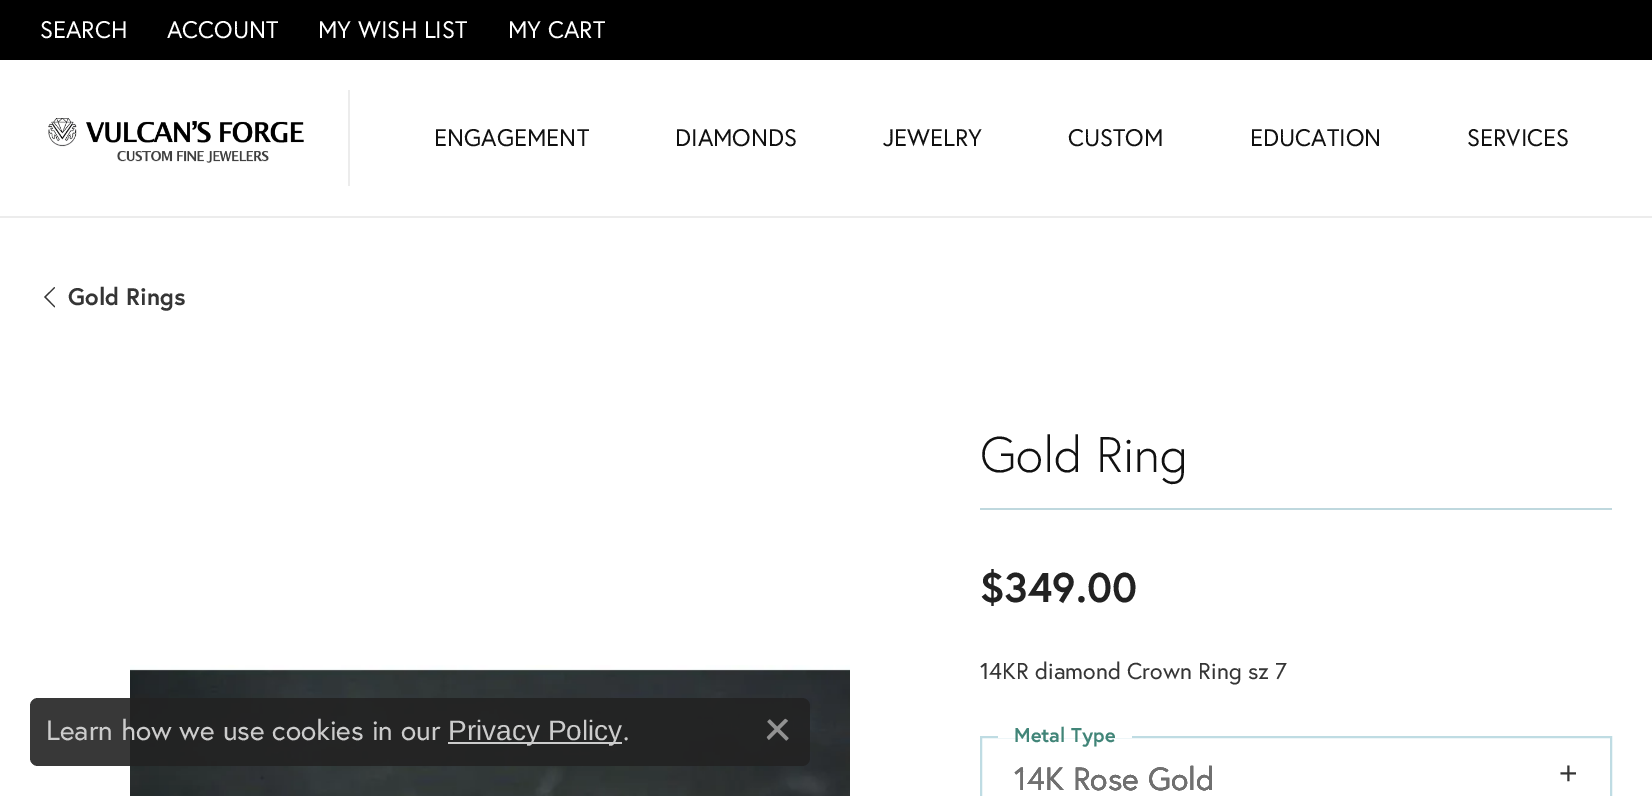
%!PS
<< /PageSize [1652 796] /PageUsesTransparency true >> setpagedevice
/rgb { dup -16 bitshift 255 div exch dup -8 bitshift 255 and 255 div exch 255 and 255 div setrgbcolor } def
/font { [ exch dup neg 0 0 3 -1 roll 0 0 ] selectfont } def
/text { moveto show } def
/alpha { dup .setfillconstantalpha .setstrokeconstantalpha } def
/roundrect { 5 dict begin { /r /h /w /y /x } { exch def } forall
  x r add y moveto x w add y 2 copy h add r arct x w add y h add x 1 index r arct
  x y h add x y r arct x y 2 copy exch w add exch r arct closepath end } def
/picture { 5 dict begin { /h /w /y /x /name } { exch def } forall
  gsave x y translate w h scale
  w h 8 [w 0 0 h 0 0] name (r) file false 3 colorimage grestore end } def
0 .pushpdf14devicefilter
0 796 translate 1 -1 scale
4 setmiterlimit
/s1 { /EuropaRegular-Regular 24 font 16#FFFFFF rgb } def
/s2 { /EuropaRegular-Regular 24 font 16#111111 rgb } def
/s3 { /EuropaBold-Bold 24 font 16#353535 rgb } def
/s4 { /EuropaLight-Light 50 font 16#111111 rgb } def
/s5 { /EuropaBold-Bold 41.5 font 16#222222 rgb } def
/s6 { /EuropaRegular-Regular 23 font 16#353535 rgb } def
/s7 { /EuropaBold-Bold 20 font 16#418578 rgb } def
/s8 { /EuropaRegular-Regular 32 font 16#353535 rgb } def
/s9 { /LiberationSans-Regular 32 font 16#353535 rgb } def
/s10 { /EuropaRegular-Regular 32 font 16#707070 rgb } def
/s11 { /EuropaRegular-Regular 28 font 16#CCCCCC rgb } def
/s12 { /LiberationSans-Regular 28 font 16#CCCCCC rgb } def
16#FFFFFF rgb
0 0 1652 796 rectfill
16#000000 rgb
0 0 1652 60 rectfill
s1
(SEARCH) 40 38 text
(ACCOUNT) 167 38 text
(MY WISH LIST) 318 38 text
(MY CART) 508 38 text
16#ECECEC rgb
0 216 1652 2 rectfill
348 90 2 96 rectfill
(pic1.raw) 48 118 256 45 picture
s2
(ENGAGEMENT) 434 146 text
(DIAMONDS) 675 146 text
(JEWELRY) 883 146 text
(CUSTOM) 1068 146 text
(EDUCATION) 1250 146 text
(SERVICES) 1467 146 text
16#353535 rgb
54.5 307.5 moveto 44 297 lineto 54.5 287 lineto 55 288 lineto 46 297 lineto 55 306.5 lineto closepath fill
s3
(Gold Rings) 68 305 text
(pic2.raw) 130 665 720 131 picture
s4
(Gold Ring) 980 472 text
16#BFD8DE rgb
980 508 632 2 rectfill
s5
($349.00) 980 602 text
s6
(14KR diamond Crown Ring sz 7) 980 679 text
16#BFDCE3 rgb
2 setlinewidth
981 737 630 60 rectstroke
16#FFFFFF rgb
998 736 134 2 rectfill
s7
(Metal Type) 1014 742 text
s8
(14K Rose Gold) 1014 790 text
s9
(+) 1559 784 text
s10
(14K Rose Gold) 1014 790 text
0.9 alpha
16#222222 rgb
30 698 780 68 8 roundrect fill
1 alpha
s11
(Learn how we use cookies in our) 46 740 text
448 742 174 2 rectfill
s12
(Privacy Policy) 448 740 text
s11
(.) 623 740 text
(pic3.raw) 766 718 23 23 picture
.poppdf14devicefilter showpage
